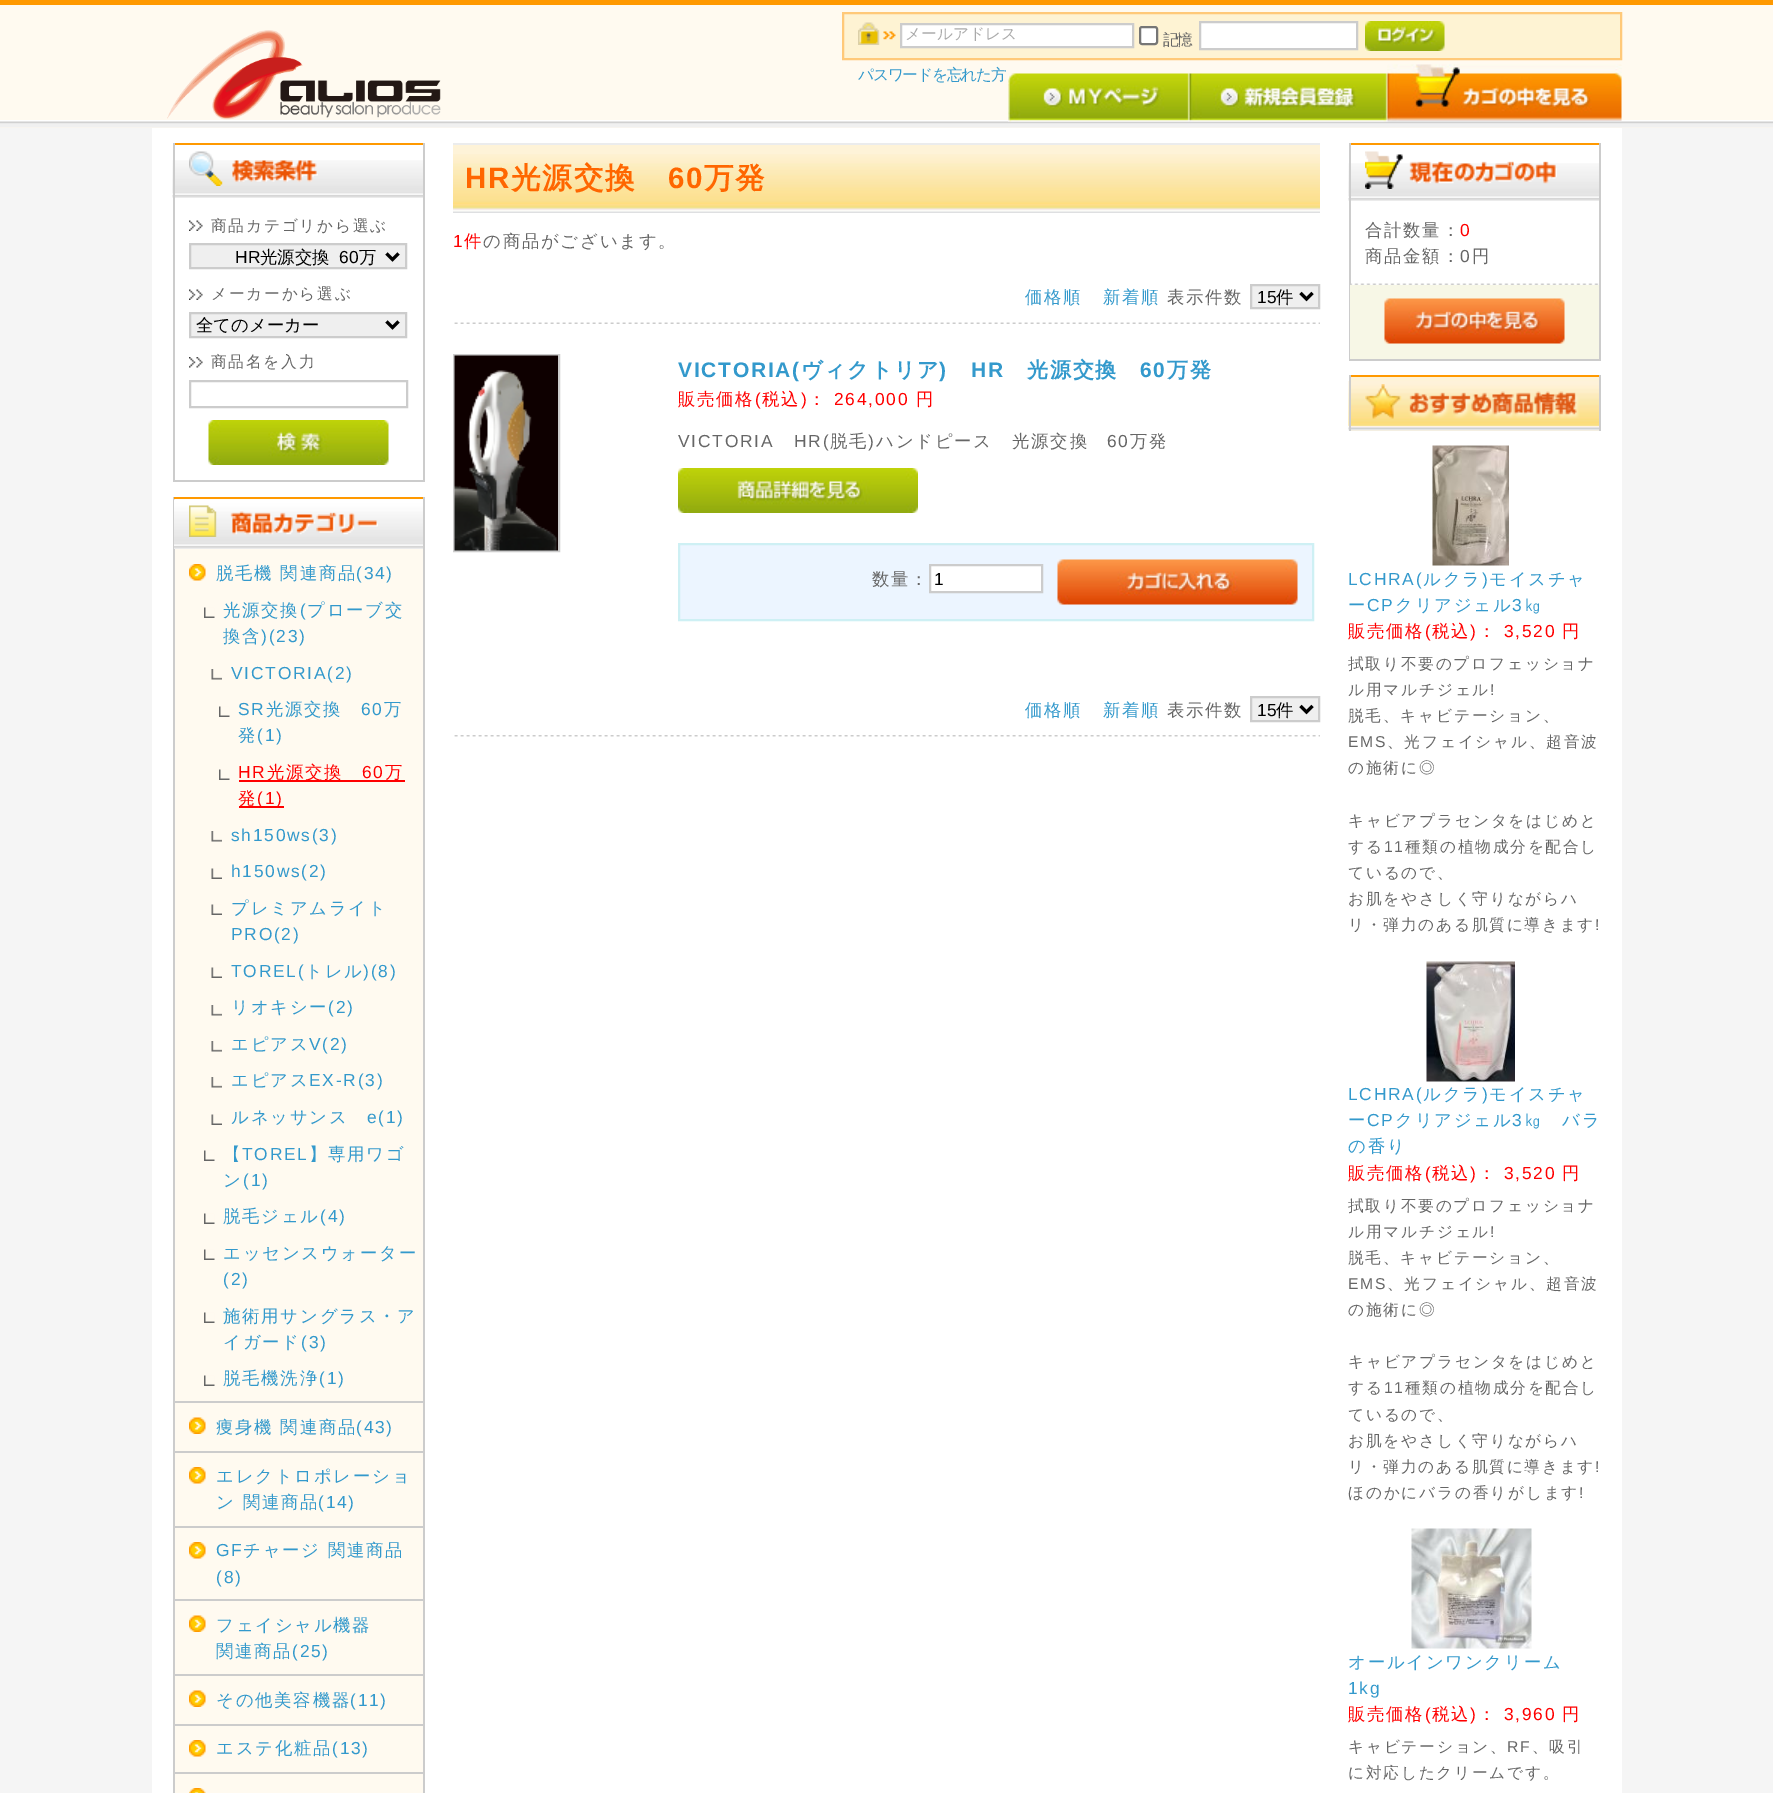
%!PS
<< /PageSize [1773 1793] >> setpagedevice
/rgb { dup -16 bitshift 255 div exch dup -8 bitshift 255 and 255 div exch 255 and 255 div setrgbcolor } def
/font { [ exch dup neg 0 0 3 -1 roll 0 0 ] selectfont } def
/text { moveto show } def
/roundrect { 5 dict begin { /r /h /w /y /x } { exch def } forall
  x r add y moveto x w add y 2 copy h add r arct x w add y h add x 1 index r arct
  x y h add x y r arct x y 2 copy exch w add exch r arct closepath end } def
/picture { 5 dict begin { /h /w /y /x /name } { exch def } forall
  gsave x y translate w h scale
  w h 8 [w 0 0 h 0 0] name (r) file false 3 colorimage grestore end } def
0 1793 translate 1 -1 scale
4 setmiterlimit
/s1 { /WenQuanYiZenHei-Medium 15.7 font 16#AAAAAA rgb } def
/s2 { /LiberationSans-Regular 17.4 font 16#000000 rgb } def
/s3 { /WenQuanYiZenHei-Medium 17.4 font 16#000000 rgb } def
16#F5F5F5 rgb
0 0 1773 1793 rectfill
16#FFFAF0 rgb
0 5 1773 123 rectfill
(pic1.raw) 0 120 1773 8 picture
16#FF9900 rgb
0 0 1773 5 rectfill
(pic2.raw) 167 30 274 90 picture
16#FEF3D3 rgb
843 13 moveto 1621 13 lineto 1621 59 lineto 843 59 lineto closepath gsave fill grestore
16#FFC979 rgb
2 setlinewidth
stroke
(pic3.raw) 858 22 38 23 picture
16#FFFFFF rgb
901 24 moveto 1133 24 lineto 1133 47 lineto 901 47 lineto closepath gsave fill grestore
16#CCCCCC rgb
stroke
s1
(メールアドレス) 905 39 text
16#FFFFFF rgb
1140 27 17 17 2 roundrect gsave fill grestore
16#767676 rgb
stroke
16#666666 rgb
1163 45 moveto -1.25 0 (記憶) ashow
16#FFFFFF rgb
1200 22 moveto 1357 22 lineto 1357 49 lineto 1200 49 lineto closepath gsave fill grestore
16#CCCCCC rgb
stroke
(pic4.raw) 1365 21 80 30 picture
16#3399CC rgb
858 80 moveto -1.25 0 (パスワードを忘れた方) ashow
(pic5.raw) 1008 73 182 49 picture
(pic6.raw) 1189 73 199 49 picture
(pic7.raw) 1387 64 235 57 picture
16#FFFFFF rgb
152 128 1470 1665 rectfill
(pic8.raw) 172 160 251 38 picture
16#FF9900 rgb
173 143 252 2 rectfill
16#CCCCCC rgb
423 143 2 339 rectfill
173 143 2 55 rectfill
(pic9.raw) 189 151 129 35 picture
173 480 252 2 rectfill
173 198 2 284 rectfill
(pic10.raw) 189 220 14 11 picture
16#666666 rgb
211 231 moveto 1.75 0 (商品カテゴリから選ぶ) ashow
16#EFEFEF rgb
190 244 moveto 406 244 lineto 406 268 lineto 190 268 lineto closepath gsave fill grestore
16#CCCCCC rgb
stroke
16#000000 rgb
3 setlinewidth
386.5 253.5 moveto 392.5 259.5 lineto 398.5 253.5 lineto stroke
s2
(HR) 235 263 text
s3
(光源交換) 260 263 text
s2
(60) 339 263 text
s3
(万) 359 263 text
(pic10.raw) 189 289 14 11 picture
/WenQuanYiZenHei-Medium 15.7 font
16#666666 rgb
211 299 moveto 1.75 0 (メーカーから選ぶ) ashow
16#EFEFEF rgb
190 313 moveto 406 313 lineto 406 337 lineto 190 337 lineto closepath gsave fill grestore
16#CCCCCC rgb
2 setlinewidth
stroke
16#000000 rgb
3 setlinewidth
386.5 321.5 moveto 392.5 327.5 lineto 398.5 321.5 lineto stroke
s3
(全てのメーカー) 196 331 text
(pic11.raw) 189 357 14 11 picture
/WenQuanYiZenHei-Medium 15.7 font
16#666666 rgb
211 367 moveto 1.75 0 (商品名を入力) ashow
16#CCCCCC rgb
2 setlinewidth
190 381 217 26 rectstroke
(pic12.raw) 208 420 181 45 picture
16#FFFAF0 rgb
175 499 248 1294 rectfill
16#CCCCCC rgb
423 497 2 1296 rectfill
173 497 2 1296 rectfill
(pic13.raw) 174 499 249 50 picture
16#FF9900 rgb
174 497 249 2 rectfill
(pic14.raw) 189 505 189 32 picture
16#CCCCCC rgb
174 1401 249 2 rectfill
(pic15.raw) 189 564 17 17 picture
/WenQuanYiZenHei-Medium 17.4 font
16#3399CC rgb
216 579 moveto 1.75 0 (脱毛機 関連商品) ashow
/LiberationSans-Regular 17.4 font
356 579 moveto 1.75 0 (\(34\)) ashow
(pic16.raw) 204 607 11 11 picture
/WenQuanYiZenHei-Medium 17.4 font
223 616 moveto 1.75 0 (光源交換) ashow
/LiberationSans-Regular 17.4 font
300 616 moveto 1.75 0 (\() ashow
/WenQuanYiZenHei-Medium 17.4 font
307 616 moveto 1.75 0 (プローブ交) ashow
223 642 moveto 1.75 0 (換含) ashow
/LiberationSans-Regular 17.4 font
261 642 moveto 1.75 0 (\)\(23\)) ashow
(pic17.raw) 211 669 11 11 picture
231 679 moveto 1.75 0 (VICTORIA\(2\)) ashow
(pic16.raw) 219 706 11 11 picture
238 715 moveto 1.75 0 (SR) ashow
/WenQuanYiZenHei-Medium 17.4 font
266 715 moveto 1.75 0 (光源交換) ashow
/LiberationSans-Regular 17.4 font
361 715 moveto 1.75 0 (60) ashow
/WenQuanYiZenHei-Medium 17.4 font
384 715 moveto 1.75 0 (万) ashow
238 741 moveto 1.75 0 (発) ashow
/LiberationSans-Regular 17.4 font
257 741 moveto 1.75 0 (\(1\)) ashow
(pic16.raw) 219 769 11 11 picture
16#FF0000 rgb
238 778 moveto 1.75 0 (HR) ashow
239 780 166 2 rectfill
/WenQuanYiZenHei-Medium 17.4 font
267 778 moveto 1.75 0 (光源交換) ashow
/LiberationSans-Regular 17.4 font
362 778 moveto 1.75 0 (60) ashow
/WenQuanYiZenHei-Medium 17.4 font
385 778 moveto 1.75 0 (万) ashow
239 806 45 2 rectfill
238 804 moveto 1.75 0 (発) ashow
/LiberationSans-Regular 17.4 font
257 804 moveto 1.75 0 (\(1\)) ashow
(pic17.raw) 211 831 11 11 picture
16#3399CC rgb
231 841 moveto 1.75 0 (sh150ws\(3\)) ashow
(pic18.raw) 211 868 11 11 picture
231 877 moveto 1.75 0 (h150ws\(2\)) ashow
(pic18.raw) 211 904 11 11 picture
/WenQuanYiZenHei-Medium 17.4 font
231 914 moveto 1.75 0 (プレミアムライト) ashow
/LiberationSans-Regular 17.4 font
231 940 moveto 1.75 0 (PRO\(2\)) ashow
(pic18.raw) 211 967 11 11 picture
231 977 moveto 1.75 0 (TOREL\() ashow
/WenQuanYiZenHei-Medium 17.4 font
305 977 moveto 1.75 0 (トレル) ashow
/LiberationSans-Regular 17.4 font
363 977 moveto 1.75 0 (\)\(8\)) ashow
(pic17.raw) 211 1005 11 11 picture
/WenQuanYiZenHei-Medium 17.4 font
231 1013 moveto 1.75 0 (リオキシー) ashow
/LiberationSans-Regular 17.4 font
328 1013 moveto 1.75 0 (\(2\)) ashow
(pic17.raw) 211 1041 11 11 picture
/WenQuanYiZenHei-Medium 17.4 font
231 1050 moveto 1.75 0 (エピアス) ashow
/LiberationSans-Regular 17.4 font
309 1050 moveto 1.75 0 (V\(2\)) ashow
(pic17.raw) 211 1077 11 11 picture
/WenQuanYiZenHei-Medium 17.4 font
231 1086 moveto 1.75 0 (エピアス) ashow
/LiberationSans-Regular 17.4 font
309 1086 moveto 1.75 0 (EX-R\(3\)) ashow
(pic18.raw) 211 1114 11 11 picture
/WenQuanYiZenHei-Medium 17.4 font
231 1123 moveto 1.75 0 (ルネッサンス) ashow
/LiberationSans-Regular 17.4 font
367 1123 moveto 1.75 0 (e\(1\)) ashow
(pic16.raw) 204 1150 11 11 picture
/WenQuanYiZenHei-Medium 17.4 font
223 1160 moveto 1.75 0 (【) ashow
/LiberationSans-Regular 17.4 font
242 1160 moveto 1.75 0 (TOREL) ashow
/WenQuanYiZenHei-Medium 17.4 font
309 1160 moveto 1.75 0 (】専用ワゴ) ashow
223 1186 moveto 1.75 0 (ン) ashow
/LiberationSans-Regular 17.4 font
243 1186 moveto 1.75 0 (\(1\)) ashow
(pic16.raw) 204 1213 11 11 picture
/WenQuanYiZenHei-Medium 17.4 font
223 1222 moveto 1.75 0 (脱毛ジェル) ashow
/LiberationSans-Regular 17.4 font
320 1222 moveto 1.75 0 (\(4\)) ashow
(pic16.raw) 204 1249 11 11 picture
/WenQuanYiZenHei-Medium 17.4 font
223 1259 moveto 1.75 0 (エッセンスウォーター) ashow
/LiberationSans-Regular 17.4 font
223 1285 moveto 1.75 0 (\(2\)) ashow
(pic16.raw) 204 1312 11 11 picture
/WenQuanYiZenHei-Medium 17.4 font
223 1322 moveto 1.75 0 (施術用サングラス・ア) ashow
223 1348 moveto 1.75 0 (イガード) ashow
/LiberationSans-Regular 17.4 font
301 1348 moveto 1.75 0 (\(3\)) ashow
(pic16.raw) 204 1375 11 11 picture
/WenQuanYiZenHei-Medium 17.4 font
223 1384 moveto 1.75 0 (脱毛機洗浄) ashow
/LiberationSans-Regular 17.4 font
319 1384 moveto 1.75 0 (\(1\)) ashow
16#CCCCCC rgb
174 1451 249 2 rectfill
(pic19.raw) 189 1417 17 17 picture
/WenQuanYiZenHei-Medium 17.4 font
16#3399CC rgb
216 1433 moveto 1.75 0 (痩身機 関連商品) ashow
/LiberationSans-Regular 17.4 font
356 1433 moveto 1.75 0 (\(43\)) ashow
16#CCCCCC rgb
174 1526 249 2 rectfill
(pic15.raw) 189 1467 17 17 picture
/WenQuanYiZenHei-Medium 17.4 font
16#3399CC rgb
216 1482 moveto 1.75 0 (エレクトロポレーショ) ashow
216 1508 moveto 1.75 0 (ン 関連商品) ashow
/LiberationSans-Regular 17.4 font
318 1508 moveto 1.75 0 (\(14\)) ashow
16#CCCCCC rgb
174 1599 249 2 rectfill
(pic15.raw) 189 1542 17 17 picture
16#3399CC rgb
216 1556 moveto 1.75 0 (GF) ashow
/WenQuanYiZenHei-Medium 17.4 font
243 1556 moveto 1.75 0 (チャージ 関連商品) ashow
/LiberationSans-Regular 17.4 font
216 1583 moveto 1.75 0 (\(8\)) ashow
16#CCCCCC rgb
174 1674 249 2 rectfill
(pic19.raw) 189 1615 17 17 picture
/WenQuanYiZenHei-Medium 17.4 font
16#3399CC rgb
216 1631 moveto 1.75 0 (フェイシャル機器) ashow
216 1657 moveto 1.75 0 (関連商品) ashow
/LiberationSans-Regular 17.4 font
292 1657 moveto 1.75 0 (\(25\)) ashow
16#CCCCCC rgb
174 1724 249 2 rectfill
(pic19.raw) 189 1690 17 17 picture
/WenQuanYiZenHei-Medium 17.4 font
16#3399CC rgb
216 1706 moveto 1.75 0 (その他美容機器) ashow
/LiberationSans-Regular 17.4 font
350 1706 moveto 1.75 0 (\(11\)) ashow
16#CCCCCC rgb
174 1772 249 2 rectfill
(pic15.raw) 189 1740 17 17 picture
/WenQuanYiZenHei-Medium 17.4 font
16#3399CC rgb
216 1754 moveto 1.75 0 (エステ化粧品) ashow
/LiberationSans-Regular 17.4 font
332 1754 moveto 1.75 0 (\(13\)) ashow
(pic20.raw) 189 1788 17 5 picture
16#FEF3D8 rgb
453 145 867 9 rectfill
(pic21.raw) 453 154 867 59 picture
16#EBECED rgb
453 143 867 2 rectfill
/LiberationSans-Bold 29.5 font
16#FF6600 rgb
465 188 moveto 1.75 0 (HR) ashow
/WenQuanYiZenHei-Bold 29.5 font
511 188 moveto 1.75 0 (光源交換) ashow
/LiberationSans-Bold 29.5 font
668 188 moveto 1.75 0 (60) ashow
/WenQuanYiZenHei-Bold 29.5 font
704 188 moveto 1.75 0 (万発) ashow
/LiberationSans-Regular 17.4 font
16#FF0000 rgb
453 247 moveto 1.75 0 (1) ashow
/WenQuanYiZenHei-Medium 17.4 font
464 247 moveto 1.75 0 (件) ashow
16#666666 rgb
483 247 moveto 1.75 0 (の商品がございます。) ashow
(pic22.raw) 454 322 866 2 picture
16#3399CC rgb
1025 303 moveto 1.75 0 (価格順) ashow
1103 303 moveto 1.75 0 (新着順) ashow
16#666666 rgb
1167 303 moveto 1.75 0 (表示件数) ashow
16#EFEFEF rgb
1251 285 moveto 1319 285 lineto 1319 308 lineto 1251 308 lineto closepath gsave fill grestore
16#CCCCCC rgb
stroke
16#000000 rgb
3 setlinewidth
1300.5 293 moveto 1306.5 299 lineto 1312.5 293 lineto stroke
s2
(15) 1257 303 text
s3
(件) 1276 303 text
16#CCCCCC rgb
2 setlinewidth
454 355 105 196 rectstroke
(pic23.raw) 454 355 104 196 picture
/LiberationSans-Bold 21 font
16#3399CC rgb
678 377 moveto 1.75 0 (VICTORIA\() ashow
/WenQuanYiZenHei-Bold 21 font
801 377 moveto 1.75 0 (ヴィクトリア) ashow
/LiberationSans-Bold 21 font
939 377 moveto 1.75 0 (\)) ashow
971 377 moveto 1.75 0 (HR) ashow
/WenQuanYiZenHei-Bold 21 font
1027 377 moveto 1.75 0 (光源交換) ashow
/LiberationSans-Bold 21 font
1140 377 moveto 1.75 0 (60) ashow
/WenQuanYiZenHei-Bold 21 font
1167 377 moveto 1.75 0 (万発) ashow
/WenQuanYiZenHei-Medium 17.4 font
16#FF0000 rgb
678 405 moveto 1.75 0 (販売価格) ashow
/LiberationSans-Regular 17.4 font
755 405 moveto 1.75 0 (\() ashow
/WenQuanYiZenHei-Medium 17.4 font
762 405 moveto 1.75 0 (税込) ashow
/LiberationSans-Regular 17.4 font
801 405 moveto 1.75 0 (\)) ashow
/WenQuanYiZenHei-Medium 17.4 font
808 405 moveto 1.75 0 (：) ashow
/LiberationSans-Regular 17.4 font
834 405 moveto 1.75 0 (264,000) ashow
/WenQuanYiZenHei-Medium 17.4 font
916 405 moveto 1.75 0 (円) ashow
/LiberationSans-Regular 17.4 font
16#666666 rgb
678 447 moveto 1.75 0 (VICTORIA) ashow
794 447 moveto 1.75 0 (HR\() ashow
/WenQuanYiZenHei-Medium 17.4 font
830 447 moveto 1.75 0 (脱毛) ashow
/LiberationSans-Regular 17.4 font
868 447 moveto 1.75 0 (\)) ashow
/WenQuanYiZenHei-Medium 17.4 font
876 447 moveto 1.75 0 (ハンドピース　光源交換) ashow
/LiberationSans-Regular 17.4 font
1107 447 moveto 1.75 0 (60) ashow
/WenQuanYiZenHei-Medium 17.4 font
1130 447 moveto 1.75 0 (万発) ashow
(pic24.raw) 678 468 240 45 picture
16#ECF5FF rgb
679 544 moveto 1313 544 lineto 1313 620 lineto 679 620 lineto closepath gsave fill grestore
16#CEF0F4 rgb
stroke
16#666666 rgb
872 585 moveto 1.75 0 (数量：) ashow
16#FFFFFF rgb
930 565 moveto 1042 565 lineto 1042 592 lineto 930 592 lineto closepath gsave fill grestore
16#CCCCCC rgb
stroke
s2
(1) 934 585 text
(pic25.raw) 1057 559 241 46 picture
(pic26.raw) 454 735 866 2 picture
/WenQuanYiZenHei-Medium 17.4 font
16#3399CC rgb
1025 716 moveto 1.75 0 (価格順) ashow
1103 716 moveto 1.75 0 (新着順) ashow
16#666666 rgb
1167 716 moveto 1.75 0 (表示件数) ashow
16#EFEFEF rgb
1251 697 moveto 1319 697 lineto 1319 721 lineto 1251 721 lineto closepath gsave fill grestore
16#CCCCCC rgb
stroke
16#000000 rgb
3 setlinewidth
1300.5 706 moveto 1306.5 712 lineto 1312.5 706 lineto stroke
s2
(15) 1257 716 text
s3
(件) 1276 716 text
(pic8.raw) 1348 163 251 38 picture
16#FF9900 rgb
1349 143 252 2 rectfill
16#CCCCCC rgb
1599 143 2 217 rectfill
1349 143 2 58 rectfill
(pic27.raw) 1365 151 192 38 picture
1349 359 252 2 rectfill
1349 201 2 159 rectfill
16#666666 rgb
1365 236 moveto 1.75 0 (合計数量：) ashow
/LiberationSans-Regular 17.4 font
16#FF0000 rgb
1460 236 moveto 1.75 0 (0) ashow
/WenQuanYiZenHei-Medium 17.4 font
16#666666 rgb
1365 262 moveto 1.75 0 (商品金額：) ashow
/LiberationSans-Regular 17.4 font
1460 262 moveto 1.75 0 (0) ashow
/WenQuanYiZenHei-Medium 17.4 font
1472 262 moveto 1.75 0 (円) ashow
16#F7F7E6 rgb
1350 285 249 74 rectfill
(pic28.raw) 1350 283 249 2 picture
(pic29.raw) 1384 298 181 46 picture
16#FEF3D8 rgb
1351 377 248 54 rectfill
(pic30.raw) 1348 381 251 50 picture
16#FF9900 rgb
1349 375 252 2 rectfill
16#CCCCCC rgb
1599 375 2 56 rectfill
1349 375 2 56 rectfill
(pic31.raw) 1365 384 215 35 picture
(pic32.raw) 1432 445 77 121 picture
/LiberationSans-Regular 17.4 font
16#3399CC rgb
1348 585 moveto 1.75 0 (LCHRA\() ashow
/WenQuanYiZenHei-Medium 17.4 font
1423 585 moveto 1.75 0 (ルクラ) ashow
/LiberationSans-Regular 17.4 font
1482 585 moveto 1.75 0 (\)) ashow
/WenQuanYiZenHei-Medium 17.4 font
1489 585 moveto 1.75 0 (モイスチャ) ashow
1348 611 moveto 1.75 0 (ー) ashow
/LiberationSans-Regular 17.4 font
1367 611 moveto 1.75 0 (CP) ashow
/WenQuanYiZenHei-Medium 17.4 font
1395 611 moveto 1.75 0 (クリアジェル) ashow
/LiberationSans-Regular 17.4 font
1512 611 moveto 1.75 0 (3) ashow
/WenQuanYiZenHei-Medium 17.4 font
1524 611 moveto 1.75 0 (㎏) ashow
16#FF0000 rgb
1348 637 moveto 1.75 0 (販売価格) ashow
/LiberationSans-Regular 17.4 font
1425 637 moveto 1.75 0 (\() ashow
/WenQuanYiZenHei-Medium 17.4 font
1432 637 moveto 1.75 0 (税込) ashow
/LiberationSans-Regular 17.4 font
1470 637 moveto 1.75 0 (\)) ashow
/WenQuanYiZenHei-Medium 17.4 font
1478 637 moveto 1.75 0 (：) ashow
/LiberationSans-Regular 17.4 font
1504 637 moveto 1.75 0 (3,520) ashow
/WenQuanYiZenHei-Medium 17.4 font
1562 637 moveto 1.75 0 (円) ashow
/WenQuanYiZenHei-Medium 15.7 font
16#666666 rgb
1348 669 moveto 1.75 0 (拭取り不要のプロフェッショナ) ashow
1348 695 moveto 1.75 0 (ル用マルチジェル) ashow
/LiberationSans-Regular 15.7 font
1490 695 moveto 1.75 0 (!) ashow
/WenQuanYiZenHei-Medium 15.7 font
1348 721 moveto 1.75 0 (脱毛、キャビテーション、) ashow
/LiberationSans-Regular 15.7 font
1348 747 moveto 1.75 0 (EMS) ashow
/WenQuanYiZenHei-Medium 15.7 font
1387 747 moveto 1.75 0 (、光フェイシャル、超音波) ashow
1348 773 moveto 1.75 0 (の施術に◎) ashow
1348 826 moveto 1.75 0 (キャビアプラセンタをはじめと) ashow
1348 852 moveto 1.75 0 (する) ashow
/LiberationSans-Regular 15.7 font
1384 852 moveto 1.75 0 (11) ashow
/WenQuanYiZenHei-Medium 15.7 font
1405 852 moveto 1.75 0 (種類の植物成分を配合し) ashow
1348 878 moveto 1.75 0 (ているので、) ashow
1348 904 moveto 1.75 0 (お肌をやさしく守りながらハ) ashow
1348 930 moveto 1.75 0 (リ・弾力のある肌質に導きます) ashow
/LiberationSans-Regular 15.7 font
1595 930 moveto 1.75 0 (!) ashow
(pic33.raw) 1426 961 89 121 picture
/LiberationSans-Regular 17.4 font
16#3399CC rgb
1348 1100 moveto 1.75 0 (LCHRA\() ashow
/WenQuanYiZenHei-Medium 17.4 font
1423 1100 moveto 1.75 0 (ルクラ) ashow
/LiberationSans-Regular 17.4 font
1482 1100 moveto 1.75 0 (\)) ashow
/WenQuanYiZenHei-Medium 17.4 font
1489 1100 moveto 1.75 0 (モイスチャ) ashow
1348 1126 moveto 1.75 0 (ー) ashow
/LiberationSans-Regular 17.4 font
1367 1126 moveto 1.75 0 (CP) ashow
/WenQuanYiZenHei-Medium 17.4 font
1395 1126 moveto 1.75 0 (クリアジェル) ashow
/LiberationSans-Regular 17.4 font
1512 1126 moveto 1.75 0 (3) ashow
/WenQuanYiZenHei-Medium 17.4 font
1524 1126 moveto 1.75 0 (㎏　バラ) ashow
1348 1152 moveto 1.75 0 (の香り) ashow
16#FF0000 rgb
1348 1179 moveto 1.75 0 (販売価格) ashow
/LiberationSans-Regular 17.4 font
1425 1179 moveto 1.75 0 (\() ashow
/WenQuanYiZenHei-Medium 17.4 font
1432 1179 moveto 1.75 0 (税込) ashow
/LiberationSans-Regular 17.4 font
1470 1179 moveto 1.75 0 (\)) ashow
/WenQuanYiZenHei-Medium 17.4 font
1478 1179 moveto 1.75 0 (：) ashow
/LiberationSans-Regular 17.4 font
1504 1179 moveto 1.75 0 (3,520) ashow
/WenQuanYiZenHei-Medium 17.4 font
1562 1179 moveto 1.75 0 (円) ashow
/WenQuanYiZenHei-Medium 15.7 font
16#666666 rgb
1348 1211 moveto 1.75 0 (拭取り不要のプロフェッショナ) ashow
1348 1237 moveto 1.75 0 (ル用マルチジェル) ashow
/LiberationSans-Regular 15.7 font
1490 1237 moveto 1.75 0 (!) ashow
/WenQuanYiZenHei-Medium 15.7 font
1348 1263 moveto 1.75 0 (脱毛、キャビテーション、) ashow
/LiberationSans-Regular 15.7 font
1348 1289 moveto 1.75 0 (EMS) ashow
/WenQuanYiZenHei-Medium 15.7 font
1387 1289 moveto 1.75 0 (、光フェイシャル、超音波) ashow
1348 1315 moveto 1.75 0 (の施術に◎) ashow
1348 1367 moveto 1.75 0 (キャビアプラセンタをはじめと) ashow
1348 1393 moveto 1.75 0 (する) ashow
/LiberationSans-Regular 15.7 font
1384 1393 moveto 1.75 0 (11) ashow
/WenQuanYiZenHei-Medium 15.7 font
1405 1393 moveto 1.75 0 (種類の植物成分を配合し) ashow
1348 1420 moveto 1.75 0 (ているので、) ashow
1348 1446 moveto 1.75 0 (お肌をやさしく守りながらハ) ashow
1348 1472 moveto 1.75 0 (リ・弾力のある肌質に導きます) ashow
/LiberationSans-Regular 15.7 font
1595 1472 moveto 1.75 0 (!) ashow
/WenQuanYiZenHei-Medium 15.7 font
1348 1498 moveto 1.75 0 (ほのかにバラの香りがします) ashow
/LiberationSans-Regular 15.7 font
1579 1498 moveto 1.75 0 (!) ashow
(pic34.raw) 1411 1528 121 121 picture
/WenQuanYiZenHei-Medium 17.4 font
16#3399CC rgb
1348 1668 moveto 1.75 0 (オールインワンクリーム) ashow
/LiberationSans-Regular 17.4 font
1348 1694 moveto 1.75 0 (1kg) ashow
/WenQuanYiZenHei-Medium 17.4 font
16#FF0000 rgb
1348 1720 moveto 1.75 0 (販売価格) ashow
/LiberationSans-Regular 17.4 font
1425 1720 moveto 1.75 0 (\() ashow
/WenQuanYiZenHei-Medium 17.4 font
1432 1720 moveto 1.75 0 (税込) ashow
/LiberationSans-Regular 17.4 font
1470 1720 moveto 1.75 0 (\)) ashow
/WenQuanYiZenHei-Medium 17.4 font
1478 1720 moveto 1.75 0 (：) ashow
/LiberationSans-Regular 17.4 font
1504 1720 moveto 1.75 0 (3,960) ashow
/WenQuanYiZenHei-Medium 17.4 font
1562 1720 moveto 1.75 0 (円) ashow
/WenQuanYiZenHei-Medium 15.7 font
16#666666 rgb
1348 1752 moveto 1.75 0 (キャビテーション、) ashow
/LiberationSans-Regular 15.7 font
1507 1752 moveto 1.75 0 (RF) ashow
/WenQuanYiZenHei-Medium 15.7 font
1532 1752 moveto 1.75 0 (、吸引) ashow
1348 1778 moveto 1.75 0 (に対応したクリームです。) ashow
showpage
